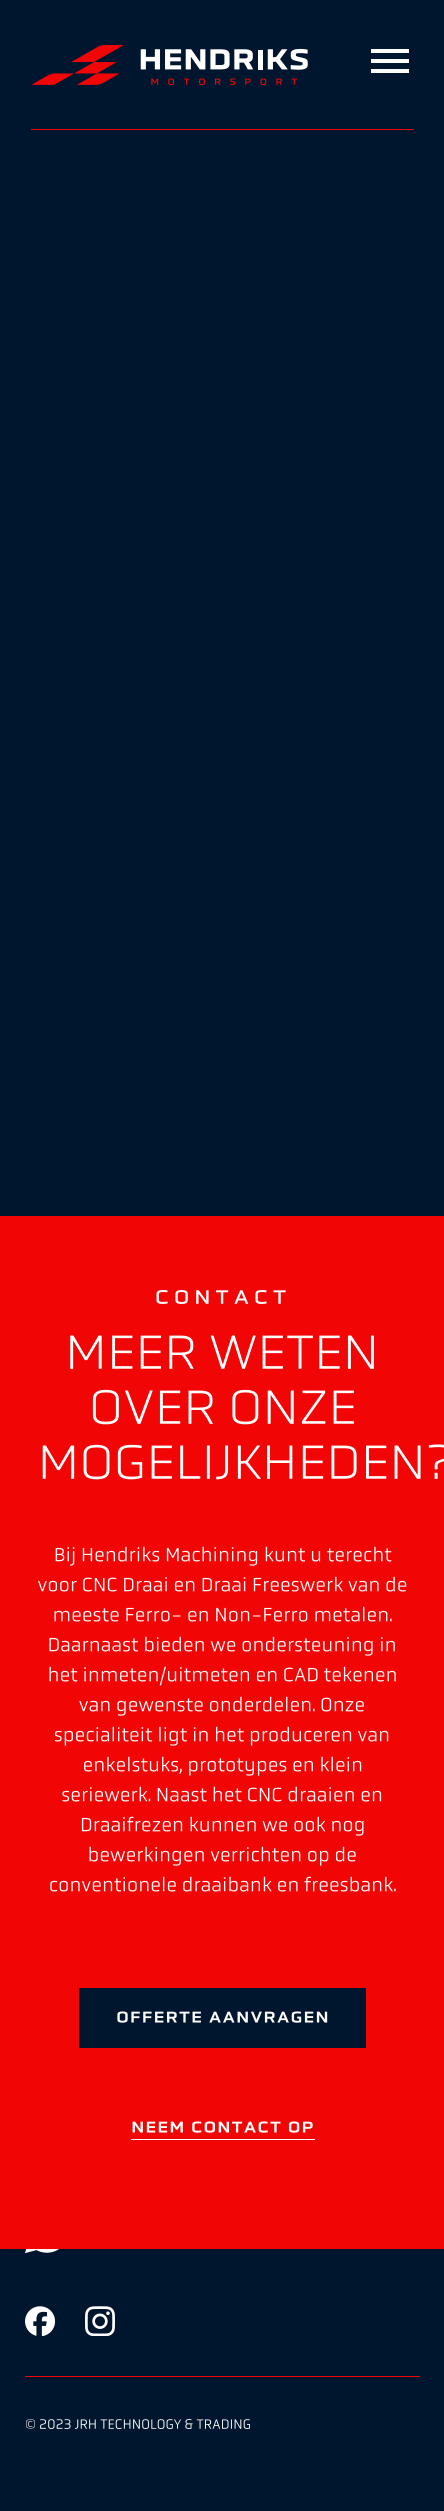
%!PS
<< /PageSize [444 2511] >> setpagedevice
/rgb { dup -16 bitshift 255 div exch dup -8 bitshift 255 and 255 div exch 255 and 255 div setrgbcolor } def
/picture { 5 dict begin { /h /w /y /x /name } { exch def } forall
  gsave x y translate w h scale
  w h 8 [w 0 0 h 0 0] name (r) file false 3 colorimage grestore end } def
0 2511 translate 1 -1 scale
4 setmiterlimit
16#00162E rgb
0 0 444 2511 rectfill
16#F20505 rgb
31 129 383 1 rectfill
(pic1.raw) 31 45 277 40 picture
16#FFFFFF rgb
371 59 38 4 rectfill
371 49 38 4 rectfill
371 69 38 4 rectfill
16#F20505 rgb
0 1216 444 1033 rectfill
(pic2.raw) 156 1290 130 14 picture
(pic3.raw) 70 1335 304 34 picture
(pic4.raw) 92 1389 262 36 picture
(pic5.raw) 42 1444 402 36 picture
(pic6.raw) 55 1546 337 20 picture
(pic7.raw) 38 1576 369 16 picture
(pic8.raw) 54 1606 338 16 picture
(pic9.raw) 49 1636 346 20 picture
(pic10.raw) 49 1666 347 20 picture
(pic11.raw) 79 1696 285 20 picture
(pic12.raw) 54 1726 335 20 picture
(pic13.raw) 84 1756 278 20 picture
(pic14.raw) 62 1786 320 16 picture
(pic15.raw) 81 1816 283 20 picture
(pic16.raw) 89 1846 267 20 picture
(pic17.raw) 50 1876 346 16 picture
16#00162E rgb
79 1988 287 60 rectfill
(pic18.raw) 117 2011 211 12 picture
(pic19.raw) 132 2121 181 12 picture
16#FFFFFF rgb
131 2139 184 1 rectfill
(pic20.raw) 25 2249 34 5 picture
(pic21.raw) 25 2306 30 30 picture
(pic22.raw) 85 2306 30 30 picture
16#F20505 rgb
25 2376 395 1 rectfill
(pic23.raw) 26 2419 224 10 picture
showpage
